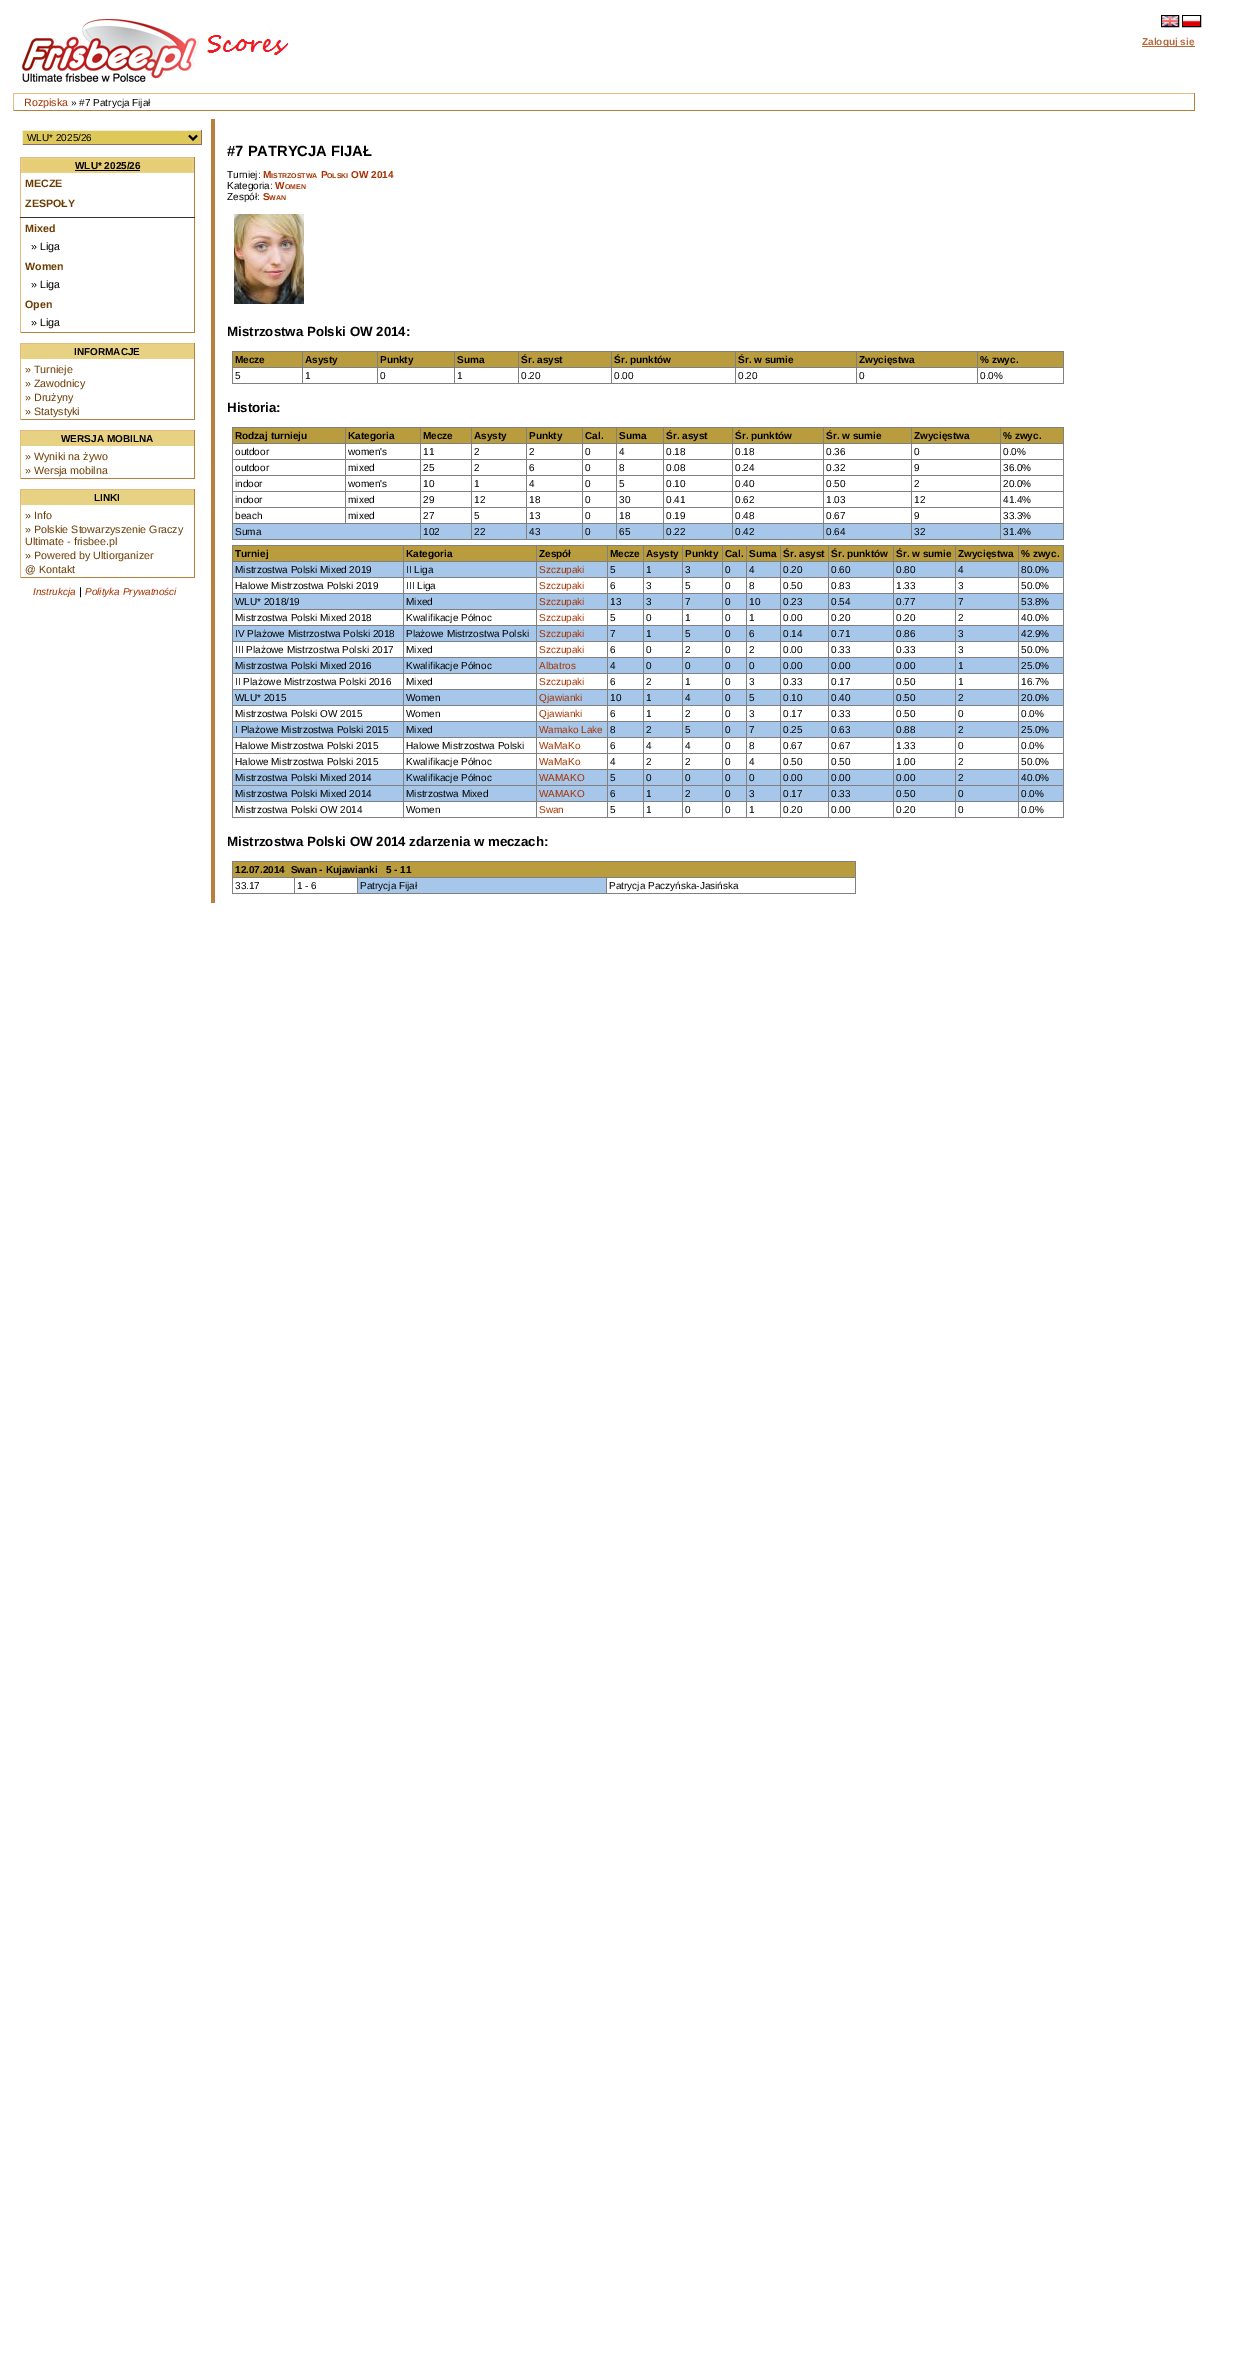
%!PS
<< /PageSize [1236 2378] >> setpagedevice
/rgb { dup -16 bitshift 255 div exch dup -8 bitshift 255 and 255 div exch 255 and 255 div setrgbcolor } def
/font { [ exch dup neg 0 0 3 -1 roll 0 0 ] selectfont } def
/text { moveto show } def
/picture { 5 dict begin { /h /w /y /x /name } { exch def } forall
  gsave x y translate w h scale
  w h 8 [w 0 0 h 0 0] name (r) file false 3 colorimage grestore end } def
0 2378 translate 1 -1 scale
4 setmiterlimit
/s1 { /LiberationSans-Bold 10 font 16#B8683D rgb } def
/s2 { /LiberationSans-Regular 10.7 font 16#A63000 rgb } def
/s3 { /LiberationSans-Regular 10 font 16#000000 rgb } def
/s4 { /LiberationSans-Bold 10 font 16#000000 rgb } def
/s5 { /LiberationSans-Bold 10.7 font 16#6D3C03 rgb } def
/s6 { /LiberationSans-Regular 10.7 font 16#000000 rgb } def
/s7 { /LiberationSans-Regular 10.7 font 16#6D3C03 rgb } def
/s8 { /LiberationSans-Italic 10 font 16#A63000 rgb } def
/s9 { /LiberationSans-Italic 10.7 font 16#000000 rgb } def
/s10 { /LiberationSans-Bold 14.75 font 16#000000 rgb } def
/s11 { /LiberationSans-Bold 10 font 16#A63000 rgb } def
/s12 { /LiberationSans-Bold 7 font 16#A63000 rgb } def
/s13 { /LiberationSans-Bold 13.3 font 16#000000 rgb } def
/s14 { /LiberationSans-Regular 10 font 16#A63000 rgb } def
16#FFFFFF rgb
0 0 1236 2378 rectfill
(pic1.raw) 22 19 267 63 picture
16#000000 rgb
1161.5 15.5 17 11 rectstroke
1182.5 15.5 18 11 rectstroke
(pic2.raw) 1162 16 16 10 picture
(pic3.raw) 1183 16 17 10 picture
16#B8683D rgb
1142 46 53 1 rectfill
s1
(Zaloguj się) 1142 45 text
16#E7B983 rgb
13 93 1182 1 rectfill
16#B87F3D rgb
1194 93 1 18 rectfill
13 110 1182 1 rectfill
16#E7B983 rgb
13 93 1 18 rectfill
s2
(Rozpiska) 24 106 text
s3
(» #7 Patrycja Fijał) 71 106 text
16#DEC859 rgb
23 131 178 13 rectfill
16#EEEEDD rgb
22 130 180 1 rectfill
16#996666 rgb
201 130 1 15 rectfill
22 144 180 1 rectfill
16#EEEEDD rgb
22 130 1 15 rectfill
16#000000 rgb
2 setlinewidth
189 135.5 moveto 193 139.5 lineto 197 135.5 lineto stroke
(WLU* 2025/26) 27 141 text
16#E7B983 rgb
20 157 175 1 rectfill
16#B87F3D rgb
194 157 1 176 rectfill
20 332 175 1 rectfill
16#E7B983 rgb
20 157 1 176 rectfill
16#E7D183 rgb
21 158 173 15 rectfill
16#E7CE76 rgb
23 160 169 11 rectfill
s4
(WLU* 2025/26) 75 169 text
75 170 65 1 rectfill
s5
(MECZE) 25 187 text
(ZESPOŁY) 25 207 text
16#333333 rgb
20 217 175 1 rectfill
s5
(Mixed) 25 232 text
s6
(» Liga) 31 250 text
s5
(Women) 25 270 text
s6
(» Liga) 31 288 text
s5
(Open) 25 308 text
s6
(» Liga) 31 326 text
16#E7B983 rgb
20 343 175 1 rectfill
16#B87F3D rgb
194 343 1 77 rectfill
20 419 175 1 rectfill
16#E7B983 rgb
20 343 1 77 rectfill
16#E7D183 rgb
21 344 173 15 rectfill
s4
(INFORMACJE) 74 355 text
s7
(» Turnieje) 25 373 text
(» Zawodnicy) 25 387 text
(» Drużyny) 25 401 text
(» Statystyki) 25 415 text
16#E7B983 rgb
20 430 175 1 rectfill
16#B87F3D rgb
194 430 1 49 rectfill
20 478 175 1 rectfill
16#E7B983 rgb
20 430 1 49 rectfill
16#E7D183 rgb
21 431 173 15 rectfill
s4
(WERSJA MOBILNA) 61 442 text
s7
(» Wyniki na żywo) 25 460 text
(» Wersja mobilna) 25 474 text
16#E7B983 rgb
20 489 175 1 rectfill
16#B87F3D rgb
194 489 1 89 rectfill
20 577 175 1 rectfill
16#E7B983 rgb
20 489 1 89 rectfill
16#E7D183 rgb
21 490 173 15 rectfill
s4
(LINKI) 94 501 text
s7
(» Info) 25 519 text
(» Polskie Stowarzyszenie Graczy) 25 533 text
(Ultimate - frisbee.pl) 25 545 text
(» Powered by Ultiorganizer) 25 559 text
(@ Kontakt) 25 573 text
s8
(Instrukcja) 33 595 text
s9
(|) 79 595 text
s8
(Polityka Prywatności) 85 595 text
16#B87F3D rgb
211 119 4 784 rectfill
s10
(#7 PATRYCJA FIJAŁ) 227 156 text
s3
(Turniej:) 227 178 text
s11
(M) 263 178 text
s12
(ISTRZOSTWA) 271 178 text
s11
(P) 321 178 text
s12
(OLSKI) 327 178 text
s11
(OW 2014) 351 178 text
s3
(Kategoria:) 227 189 text
s11
(W) 275 189 text
s12
(OMEN) 285 189 text
s3
(Zespół:) 227 200 text
s11
(S) 263 200 text
s12
(WAN) 269 200 text
(pic4.raw) 234 214 70 90 picture
s13
(Mistrzostwa Polski OW 2014:) 227 336 text
16#808080 rgb
232 351 832 1 rectfill
1063 351 1 33 rectfill
232 383 832 1 rectfill
232 351 1 33 rectfill
16#B89C3D rgb
233 352 69 15 rectfill
s4
(Mecze) 235 363 text
16#B89C3D rgb
303 352 74 15 rectfill
16#808080 rgb
977 367 87 1 rectfill
977 367 1 17 rectfill
856 367 122 1 rectfill
856 367 1 17 rectfill
735 367 122 1 rectfill
735 367 1 17 rectfill
611 367 125 1 rectfill
611 367 1 17 rectfill
518 367 94 1 rectfill
518 367 1 17 rectfill
454 367 65 1 rectfill
454 367 1 17 rectfill
377 367 78 1 rectfill
377 367 1 17 rectfill
302 367 76 1 rectfill
302 367 1 17 rectfill
232 367 71 1 rectfill
302 351 1 17 rectfill
s4
(Asysty) 305 363 text
16#B89C3D rgb
378 352 76 15 rectfill
16#808080 rgb
377 351 1 17 rectfill
s4
(Punkty) 380 363 text
16#B89C3D rgb
455 352 63 15 rectfill
16#808080 rgb
454 351 1 17 rectfill
s4
(Suma) 457 363 text
16#B89C3D rgb
519 352 92 15 rectfill
16#808080 rgb
518 351 1 17 rectfill
s4
(Śr. asyst) 521 363 text
16#B89C3D rgb
612 352 123 15 rectfill
16#808080 rgb
611 351 1 17 rectfill
s4
(Śr. punktów) 614 363 text
16#B89C3D rgb
736 352 120 15 rectfill
16#808080 rgb
735 351 1 17 rectfill
s4
(Śr. w sumie) 738 363 text
16#B89C3D rgb
857 352 120 15 rectfill
16#808080 rgb
856 351 1 17 rectfill
s4
(Zwycięstwa) 859 363 text
16#B89C3D rgb
978 352 85 15 rectfill
16#808080 rgb
977 351 1 17 rectfill
s4
(% zwyc.) 980 363 text
s3
(5) 235 379 text
(1) 305 379 text
(0) 380 379 text
(1) 457 379 text
(0.20) 521 379 text
(0.00) 614 379 text
(0.20) 738 379 text
(0) 859 379 text
(0.0%) 980 379 text
s13
(Historia:) 227 412 text
16#808080 rgb
232 427 832 1 rectfill
1063 427 1 113 rectfill
232 539 832 1 rectfill
232 427 1 113 rectfill
16#B89C3D rgb
233 428 112 15 rectfill
s4
(Rodzaj turnieju) 235 439 text
16#B89C3D rgb
346 428 74 15 rectfill
16#808080 rgb
1000 443 64 1 rectfill
1000 459 64 1 rectfill
1000 475 64 1 rectfill
1000 491 64 1 rectfill
1000 507 64 1 rectfill
1000 523 64 1 rectfill
16#A6C7E9 rgb
233 524 830 15 rectfill
16#808080 rgb
1000 523 1 17 rectfill
911 523 90 1 rectfill
1000 507 1 17 rectfill
911 507 90 1 rectfill
1000 491 1 17 rectfill
911 491 90 1 rectfill
1000 475 1 17 rectfill
911 475 90 1 rectfill
1000 459 1 17 rectfill
911 459 90 1 rectfill
1000 443 1 17 rectfill
911 443 90 1 rectfill
911 523 1 17 rectfill
823 523 89 1 rectfill
911 507 1 17 rectfill
823 507 89 1 rectfill
911 491 1 17 rectfill
823 491 89 1 rectfill
911 475 1 17 rectfill
823 475 89 1 rectfill
911 459 1 17 rectfill
823 459 89 1 rectfill
911 443 1 17 rectfill
823 443 89 1 rectfill
823 523 1 17 rectfill
732 523 92 1 rectfill
823 507 1 17 rectfill
732 507 92 1 rectfill
823 491 1 17 rectfill
732 491 92 1 rectfill
823 475 1 17 rectfill
732 475 92 1 rectfill
823 459 1 17 rectfill
732 459 92 1 rectfill
823 443 1 17 rectfill
732 443 92 1 rectfill
732 523 1 17 rectfill
663 523 70 1 rectfill
732 507 1 17 rectfill
663 507 70 1 rectfill
732 491 1 17 rectfill
663 491 70 1 rectfill
732 475 1 17 rectfill
663 475 70 1 rectfill
732 459 1 17 rectfill
663 459 70 1 rectfill
732 443 1 17 rectfill
663 443 70 1 rectfill
663 523 1 17 rectfill
616 523 48 1 rectfill
663 507 1 17 rectfill
616 507 48 1 rectfill
663 491 1 17 rectfill
616 491 48 1 rectfill
663 475 1 17 rectfill
616 475 48 1 rectfill
663 459 1 17 rectfill
616 459 48 1 rectfill
663 443 1 17 rectfill
616 443 48 1 rectfill
616 523 1 17 rectfill
582 523 35 1 rectfill
616 507 1 17 rectfill
582 507 35 1 rectfill
616 491 1 17 rectfill
582 491 35 1 rectfill
616 475 1 17 rectfill
582 475 35 1 rectfill
616 459 1 17 rectfill
582 459 35 1 rectfill
616 443 1 17 rectfill
582 443 35 1 rectfill
582 523 1 17 rectfill
526 523 57 1 rectfill
582 507 1 17 rectfill
526 507 57 1 rectfill
582 491 1 17 rectfill
526 491 57 1 rectfill
582 475 1 17 rectfill
526 475 57 1 rectfill
582 459 1 17 rectfill
526 459 57 1 rectfill
582 443 1 17 rectfill
526 443 57 1 rectfill
526 523 1 17 rectfill
471 523 56 1 rectfill
526 507 1 17 rectfill
471 507 56 1 rectfill
526 491 1 17 rectfill
471 491 56 1 rectfill
526 475 1 17 rectfill
471 475 56 1 rectfill
526 459 1 17 rectfill
471 459 56 1 rectfill
526 443 1 17 rectfill
471 443 56 1 rectfill
471 523 1 17 rectfill
420 523 52 1 rectfill
471 507 1 17 rectfill
420 507 52 1 rectfill
471 491 1 17 rectfill
420 491 52 1 rectfill
471 475 1 17 rectfill
420 475 52 1 rectfill
471 459 1 17 rectfill
420 459 52 1 rectfill
471 443 1 17 rectfill
420 443 52 1 rectfill
420 523 1 17 rectfill
232 523 189 1 rectfill
420 507 1 17 rectfill
345 507 76 1 rectfill
420 491 1 17 rectfill
345 491 76 1 rectfill
420 475 1 17 rectfill
345 475 76 1 rectfill
420 459 1 17 rectfill
345 459 76 1 rectfill
420 443 1 17 rectfill
345 443 76 1 rectfill
345 507 1 17 rectfill
232 507 114 1 rectfill
345 491 1 17 rectfill
232 491 114 1 rectfill
345 475 1 17 rectfill
232 475 114 1 rectfill
345 459 1 17 rectfill
232 459 114 1 rectfill
345 443 1 17 rectfill
232 443 114 1 rectfill
345 427 1 17 rectfill
s4
(Kategoria) 348 439 text
16#B89C3D rgb
421 428 50 15 rectfill
16#808080 rgb
420 427 1 17 rectfill
s4
(Mecze) 423 439 text
16#B89C3D rgb
472 428 54 15 rectfill
16#808080 rgb
471 427 1 17 rectfill
s4
(Asysty) 474 439 text
16#B89C3D rgb
527 428 55 15 rectfill
16#808080 rgb
526 427 1 17 rectfill
s4
(Punkty) 529 439 text
16#B89C3D rgb
583 428 33 15 rectfill
16#808080 rgb
582 427 1 17 rectfill
s4
(Cal.) 585 439 text
16#B89C3D rgb
617 428 46 15 rectfill
16#808080 rgb
616 427 1 17 rectfill
s4
(Suma) 619 439 text
16#B89C3D rgb
664 428 68 15 rectfill
16#808080 rgb
663 427 1 17 rectfill
s4
(Śr. asyst) 666 439 text
16#B89C3D rgb
733 428 90 15 rectfill
16#808080 rgb
732 427 1 17 rectfill
s4
(Śr. punktów) 735 439 text
16#B89C3D rgb
824 428 87 15 rectfill
16#808080 rgb
823 427 1 17 rectfill
s4
(Śr. w sumie) 826 439 text
16#B89C3D rgb
912 428 88 15 rectfill
16#808080 rgb
911 427 1 17 rectfill
s4
(Zwycięstwa) 914 439 text
16#B89C3D rgb
1001 428 62 15 rectfill
16#808080 rgb
1000 427 1 17 rectfill
s4
(% zwyc.) 1003 439 text
s3
(outdoor) 235 455 text
(women's) 348 455 text
(11) 423 455 text
(2) 474 455 text
(2) 529 455 text
(0) 585 455 text
(4) 619 455 text
(0.18) 666 455 text
(0.18) 735 455 text
(0.36) 826 455 text
(0) 914 455 text
(0.0%) 1003 455 text
(outdoor) 235 471 text
(mixed) 348 471 text
(25) 423 471 text
(2) 474 471 text
(6) 529 471 text
(0) 585 471 text
(8) 619 471 text
(0.08) 666 471 text
(0.24) 735 471 text
(0.32) 826 471 text
(9) 914 471 text
(36.0%) 1003 471 text
(indoor) 235 487 text
(women's) 348 487 text
(10) 423 487 text
(1) 474 487 text
(4) 529 487 text
(0) 585 487 text
(5) 619 487 text
(0.10) 666 487 text
(0.40) 735 487 text
(0.50) 826 487 text
(2) 914 487 text
(20.0%) 1003 487 text
(indoor) 235 503 text
(mixed) 348 503 text
(29) 423 503 text
(12) 474 503 text
(18) 529 503 text
(0) 585 503 text
(30) 619 503 text
(0.41) 666 503 text
(0.62) 735 503 text
(1.03) 826 503 text
(12) 914 503 text
(41.4%) 1003 503 text
(beach) 235 519 text
(mixed) 348 519 text
(27) 423 519 text
(5) 474 519 text
(13) 529 519 text
(0) 585 519 text
(18) 619 519 text
(0.19) 666 519 text
(0.48) 735 519 text
(0.67) 826 519 text
(9) 914 519 text
(33.3%) 1003 519 text
(Suma) 235 535 text
(102) 423 535 text
(22) 474 535 text
(43) 529 535 text
(0) 585 535 text
(65) 619 535 text
(0.22) 666 535 text
(0.42) 735 535 text
(0.64) 826 535 text
(32) 914 535 text
(31.4%) 1003 535 text
16#808080 rgb
232 545 832 1 rectfill
1063 545 1 273 rectfill
232 817 832 1 rectfill
232 545 1 273 rectfill
16#B89C3D rgb
233 546 170 15 rectfill
s4
(Turniej) 235 557 text
16#B89C3D rgb
404 546 132 15 rectfill
16#808080 rgb
1018 561 46 1 rectfill
16#A6C7E9 rgb
233 562 830 15 rectfill
16#808080 rgb
1018 577 46 1 rectfill
1018 593 46 1 rectfill
16#A6C7E9 rgb
233 594 830 15 rectfill
16#808080 rgb
1018 609 46 1 rectfill
1018 625 46 1 rectfill
16#A6C7E9 rgb
233 626 830 15 rectfill
16#808080 rgb
1018 641 46 1 rectfill
1018 657 46 1 rectfill
16#A6C7E9 rgb
233 658 830 15 rectfill
16#808080 rgb
1018 673 46 1 rectfill
1018 689 46 1 rectfill
16#A6C7E9 rgb
233 690 830 15 rectfill
16#808080 rgb
1018 705 46 1 rectfill
1018 721 46 1 rectfill
16#A6C7E9 rgb
233 722 830 15 rectfill
16#808080 rgb
1018 737 46 1 rectfill
1018 753 46 1 rectfill
1018 769 46 1 rectfill
16#A6C7E9 rgb
233 770 830 15 rectfill
16#808080 rgb
1018 785 46 1 rectfill
16#A6C7E9 rgb
233 786 830 15 rectfill
16#808080 rgb
1018 801 46 1 rectfill
1018 801 1 17 rectfill
955 801 64 1 rectfill
1018 785 1 17 rectfill
955 785 64 1 rectfill
1018 769 1 17 rectfill
955 769 64 1 rectfill
1018 753 1 17 rectfill
955 753 64 1 rectfill
1018 737 1 17 rectfill
955 737 64 1 rectfill
1018 721 1 17 rectfill
955 721 64 1 rectfill
1018 705 1 17 rectfill
955 705 64 1 rectfill
1018 689 1 17 rectfill
955 689 64 1 rectfill
1018 673 1 17 rectfill
955 673 64 1 rectfill
1018 657 1 17 rectfill
955 657 64 1 rectfill
1018 641 1 17 rectfill
955 641 64 1 rectfill
1018 625 1 17 rectfill
955 625 64 1 rectfill
1018 609 1 17 rectfill
955 609 64 1 rectfill
1018 593 1 17 rectfill
955 593 64 1 rectfill
1018 577 1 17 rectfill
955 577 64 1 rectfill
1018 561 1 17 rectfill
955 561 64 1 rectfill
955 801 1 17 rectfill
893 801 63 1 rectfill
955 785 1 17 rectfill
893 785 63 1 rectfill
955 769 1 17 rectfill
893 769 63 1 rectfill
955 753 1 17 rectfill
893 753 63 1 rectfill
955 737 1 17 rectfill
893 737 63 1 rectfill
955 721 1 17 rectfill
893 721 63 1 rectfill
955 705 1 17 rectfill
893 705 63 1 rectfill
955 689 1 17 rectfill
893 689 63 1 rectfill
955 673 1 17 rectfill
893 673 63 1 rectfill
955 657 1 17 rectfill
893 657 63 1 rectfill
955 641 1 17 rectfill
893 641 63 1 rectfill
955 625 1 17 rectfill
893 625 63 1 rectfill
955 609 1 17 rectfill
893 609 63 1 rectfill
955 593 1 17 rectfill
893 593 63 1 rectfill
955 577 1 17 rectfill
893 577 63 1 rectfill
955 561 1 17 rectfill
893 561 63 1 rectfill
893 801 1 17 rectfill
828 801 66 1 rectfill
893 785 1 17 rectfill
828 785 66 1 rectfill
893 769 1 17 rectfill
828 769 66 1 rectfill
893 753 1 17 rectfill
828 753 66 1 rectfill
893 737 1 17 rectfill
828 737 66 1 rectfill
893 721 1 17 rectfill
828 721 66 1 rectfill
893 705 1 17 rectfill
828 705 66 1 rectfill
893 689 1 17 rectfill
828 689 66 1 rectfill
893 673 1 17 rectfill
828 673 66 1 rectfill
893 657 1 17 rectfill
828 657 66 1 rectfill
893 641 1 17 rectfill
828 641 66 1 rectfill
893 625 1 17 rectfill
828 625 66 1 rectfill
893 609 1 17 rectfill
828 609 66 1 rectfill
893 593 1 17 rectfill
828 593 66 1 rectfill
893 577 1 17 rectfill
828 577 66 1 rectfill
893 561 1 17 rectfill
828 561 66 1 rectfill
828 801 1 17 rectfill
780 801 49 1 rectfill
828 785 1 17 rectfill
780 785 49 1 rectfill
828 769 1 17 rectfill
780 769 49 1 rectfill
828 753 1 17 rectfill
780 753 49 1 rectfill
828 737 1 17 rectfill
780 737 49 1 rectfill
828 721 1 17 rectfill
780 721 49 1 rectfill
828 705 1 17 rectfill
780 705 49 1 rectfill
828 689 1 17 rectfill
780 689 49 1 rectfill
828 673 1 17 rectfill
780 673 49 1 rectfill
828 657 1 17 rectfill
780 657 49 1 rectfill
828 641 1 17 rectfill
780 641 49 1 rectfill
828 625 1 17 rectfill
780 625 49 1 rectfill
828 609 1 17 rectfill
780 609 49 1 rectfill
828 593 1 17 rectfill
780 593 49 1 rectfill
828 577 1 17 rectfill
780 577 49 1 rectfill
828 561 1 17 rectfill
780 561 49 1 rectfill
780 801 1 17 rectfill
746 801 35 1 rectfill
780 785 1 17 rectfill
746 785 35 1 rectfill
780 769 1 17 rectfill
746 769 35 1 rectfill
780 753 1 17 rectfill
746 753 35 1 rectfill
780 737 1 17 rectfill
746 737 35 1 rectfill
780 721 1 17 rectfill
746 721 35 1 rectfill
780 705 1 17 rectfill
746 705 35 1 rectfill
780 689 1 17 rectfill
746 689 35 1 rectfill
780 673 1 17 rectfill
746 673 35 1 rectfill
780 657 1 17 rectfill
746 657 35 1 rectfill
780 641 1 17 rectfill
746 641 35 1 rectfill
780 625 1 17 rectfill
746 625 35 1 rectfill
780 609 1 17 rectfill
746 609 35 1 rectfill
780 593 1 17 rectfill
746 593 35 1 rectfill
780 577 1 17 rectfill
746 577 35 1 rectfill
780 561 1 17 rectfill
746 561 35 1 rectfill
746 801 1 17 rectfill
722 801 25 1 rectfill
746 785 1 17 rectfill
722 785 25 1 rectfill
746 769 1 17 rectfill
722 769 25 1 rectfill
746 753 1 17 rectfill
722 753 25 1 rectfill
746 737 1 17 rectfill
722 737 25 1 rectfill
746 721 1 17 rectfill
722 721 25 1 rectfill
746 705 1 17 rectfill
722 705 25 1 rectfill
746 689 1 17 rectfill
722 689 25 1 rectfill
746 673 1 17 rectfill
722 673 25 1 rectfill
746 657 1 17 rectfill
722 657 25 1 rectfill
746 641 1 17 rectfill
722 641 25 1 rectfill
746 625 1 17 rectfill
722 625 25 1 rectfill
746 609 1 17 rectfill
722 609 25 1 rectfill
746 593 1 17 rectfill
722 593 25 1 rectfill
746 577 1 17 rectfill
722 577 25 1 rectfill
746 561 1 17 rectfill
722 561 25 1 rectfill
722 801 1 17 rectfill
682 801 41 1 rectfill
722 785 1 17 rectfill
682 785 41 1 rectfill
722 769 1 17 rectfill
682 769 41 1 rectfill
722 753 1 17 rectfill
682 753 41 1 rectfill
722 737 1 17 rectfill
682 737 41 1 rectfill
722 721 1 17 rectfill
682 721 41 1 rectfill
722 705 1 17 rectfill
682 705 41 1 rectfill
722 689 1 17 rectfill
682 689 41 1 rectfill
722 673 1 17 rectfill
682 673 41 1 rectfill
722 657 1 17 rectfill
682 657 41 1 rectfill
722 641 1 17 rectfill
682 641 41 1 rectfill
722 625 1 17 rectfill
682 625 41 1 rectfill
722 609 1 17 rectfill
682 609 41 1 rectfill
722 593 1 17 rectfill
682 593 41 1 rectfill
722 577 1 17 rectfill
682 577 41 1 rectfill
722 561 1 17 rectfill
682 561 41 1 rectfill
682 801 1 17 rectfill
643 801 40 1 rectfill
682 785 1 17 rectfill
643 785 40 1 rectfill
682 769 1 17 rectfill
643 769 40 1 rectfill
682 753 1 17 rectfill
643 753 40 1 rectfill
682 737 1 17 rectfill
643 737 40 1 rectfill
682 721 1 17 rectfill
643 721 40 1 rectfill
682 705 1 17 rectfill
643 705 40 1 rectfill
682 689 1 17 rectfill
643 689 40 1 rectfill
682 673 1 17 rectfill
643 673 40 1 rectfill
682 657 1 17 rectfill
643 657 40 1 rectfill
682 641 1 17 rectfill
643 641 40 1 rectfill
682 625 1 17 rectfill
643 625 40 1 rectfill
682 609 1 17 rectfill
643 609 40 1 rectfill
682 593 1 17 rectfill
643 593 40 1 rectfill
682 577 1 17 rectfill
643 577 40 1 rectfill
682 561 1 17 rectfill
643 561 40 1 rectfill
643 801 1 17 rectfill
607 801 37 1 rectfill
643 785 1 17 rectfill
607 785 37 1 rectfill
643 769 1 17 rectfill
607 769 37 1 rectfill
643 753 1 17 rectfill
607 753 37 1 rectfill
643 737 1 17 rectfill
607 737 37 1 rectfill
643 721 1 17 rectfill
607 721 37 1 rectfill
643 705 1 17 rectfill
607 705 37 1 rectfill
643 689 1 17 rectfill
607 689 37 1 rectfill
643 673 1 17 rectfill
607 673 37 1 rectfill
643 657 1 17 rectfill
607 657 37 1 rectfill
643 641 1 17 rectfill
607 641 37 1 rectfill
643 625 1 17 rectfill
607 625 37 1 rectfill
643 609 1 17 rectfill
607 609 37 1 rectfill
643 593 1 17 rectfill
607 593 37 1 rectfill
643 577 1 17 rectfill
607 577 37 1 rectfill
643 561 1 17 rectfill
607 561 37 1 rectfill
607 801 1 17 rectfill
536 801 72 1 rectfill
607 785 1 17 rectfill
536 785 72 1 rectfill
607 769 1 17 rectfill
536 769 72 1 rectfill
607 753 1 17 rectfill
536 753 72 1 rectfill
607 737 1 17 rectfill
536 737 72 1 rectfill
607 721 1 17 rectfill
536 721 72 1 rectfill
607 705 1 17 rectfill
536 705 72 1 rectfill
607 689 1 17 rectfill
536 689 72 1 rectfill
607 673 1 17 rectfill
536 673 72 1 rectfill
607 657 1 17 rectfill
536 657 72 1 rectfill
607 641 1 17 rectfill
536 641 72 1 rectfill
607 625 1 17 rectfill
536 625 72 1 rectfill
607 609 1 17 rectfill
536 609 72 1 rectfill
607 593 1 17 rectfill
536 593 72 1 rectfill
607 577 1 17 rectfill
536 577 72 1 rectfill
607 561 1 17 rectfill
536 561 72 1 rectfill
536 801 1 17 rectfill
403 801 134 1 rectfill
536 785 1 17 rectfill
403 785 134 1 rectfill
536 769 1 17 rectfill
403 769 134 1 rectfill
536 753 1 17 rectfill
403 753 134 1 rectfill
536 737 1 17 rectfill
403 737 134 1 rectfill
536 721 1 17 rectfill
403 721 134 1 rectfill
536 705 1 17 rectfill
403 705 134 1 rectfill
536 689 1 17 rectfill
403 689 134 1 rectfill
536 673 1 17 rectfill
403 673 134 1 rectfill
536 657 1 17 rectfill
403 657 134 1 rectfill
536 641 1 17 rectfill
403 641 134 1 rectfill
536 625 1 17 rectfill
403 625 134 1 rectfill
536 609 1 17 rectfill
403 609 134 1 rectfill
536 593 1 17 rectfill
403 593 134 1 rectfill
536 577 1 17 rectfill
403 577 134 1 rectfill
536 561 1 17 rectfill
403 561 134 1 rectfill
403 801 1 17 rectfill
232 801 172 1 rectfill
403 785 1 17 rectfill
232 785 172 1 rectfill
403 769 1 17 rectfill
232 769 172 1 rectfill
403 753 1 17 rectfill
232 753 172 1 rectfill
403 737 1 17 rectfill
232 737 172 1 rectfill
403 721 1 17 rectfill
232 721 172 1 rectfill
403 705 1 17 rectfill
232 705 172 1 rectfill
403 689 1 17 rectfill
232 689 172 1 rectfill
403 673 1 17 rectfill
232 673 172 1 rectfill
403 657 1 17 rectfill
232 657 172 1 rectfill
403 641 1 17 rectfill
232 641 172 1 rectfill
403 625 1 17 rectfill
232 625 172 1 rectfill
403 609 1 17 rectfill
232 609 172 1 rectfill
403 593 1 17 rectfill
232 593 172 1 rectfill
403 577 1 17 rectfill
232 577 172 1 rectfill
403 561 1 17 rectfill
232 561 172 1 rectfill
403 545 1 17 rectfill
s4
(Kategoria) 406 557 text
16#B89C3D rgb
537 546 70 15 rectfill
16#808080 rgb
536 545 1 17 rectfill
s4
(Zespół) 539 557 text
16#B89C3D rgb
608 546 35 15 rectfill
16#808080 rgb
607 545 1 17 rectfill
s4
(Mecze) 610 557 text
16#B89C3D rgb
644 546 38 15 rectfill
16#808080 rgb
643 545 1 17 rectfill
s4
(Asysty) 646 557 text
16#B89C3D rgb
683 546 39 15 rectfill
16#808080 rgb
682 545 1 17 rectfill
s4
(Punkty) 685 557 text
16#B89C3D rgb
723 546 23 15 rectfill
16#808080 rgb
722 545 1 17 rectfill
s4
(Cal.) 725 557 text
16#B89C3D rgb
747 546 33 15 rectfill
16#808080 rgb
746 545 1 17 rectfill
s4
(Suma) 749 557 text
16#B89C3D rgb
781 546 47 15 rectfill
16#808080 rgb
780 545 1 17 rectfill
s4
(Śr. asyst) 783 557 text
16#B89C3D rgb
829 546 64 15 rectfill
16#808080 rgb
828 545 1 17 rectfill
s4
(Śr. punktów) 831 557 text
16#B89C3D rgb
894 546 61 15 rectfill
16#808080 rgb
893 545 1 17 rectfill
s4
(Śr. w sumie) 896 557 text
16#B89C3D rgb
956 546 62 15 rectfill
16#808080 rgb
955 545 1 17 rectfill
s4
(Zwycięstwa) 958 557 text
16#B89C3D rgb
1019 546 44 15 rectfill
16#808080 rgb
1018 545 1 17 rectfill
s4
(% zwyc.) 1021 557 text
s3
(Mistrzostwa Polski Mixed 2019) 235 573 text
(II Liga) 406 573 text
s14
(Szczupaki) 539 573 text
s3
(5) 610 573 text
(1) 646 573 text
(3) 685 573 text
(0) 725 573 text
(4) 749 573 text
(0.20) 783 573 text
(0.60) 831 573 text
(0.80) 896 573 text
(4) 958 573 text
(80.0%) 1021 573 text
(Halowe Mistrzostwa Polski 2019) 235 589 text
(III Liga) 406 589 text
s14
(Szczupaki) 539 589 text
s3
(6) 610 589 text
(3) 646 589 text
(5) 685 589 text
(0) 725 589 text
(8) 749 589 text
(0.50) 783 589 text
(0.83) 831 589 text
(1.33) 896 589 text
(3) 958 589 text
(50.0%) 1021 589 text
(WLU* 2018/19) 235 605 text
(Mixed) 406 605 text
s14
(Szczupaki) 539 605 text
s3
(13) 610 605 text
(3) 646 605 text
(7) 685 605 text
(0) 725 605 text
(10) 749 605 text
(0.23) 783 605 text
(0.54) 831 605 text
(0.77) 896 605 text
(7) 958 605 text
(53.8%) 1021 605 text
(Mistrzostwa Polski Mixed 2018) 235 621 text
(Kwalifikacje Północ) 406 621 text
s14
(Szczupaki) 539 621 text
s3
(5) 610 621 text
(0) 646 621 text
(1) 685 621 text
(0) 725 621 text
(1) 749 621 text
(0.00) 783 621 text
(0.20) 831 621 text
(0.20) 896 621 text
(2) 958 621 text
(40.0%) 1021 621 text
(IV Plażowe Mistrzostwa Polski 2018) 235 637 text
(Plażowe Mistrzostwa Polski) 406 637 text
s14
(Szczupaki) 539 637 text
s3
(7) 610 637 text
(1) 646 637 text
(5) 685 637 text
(0) 725 637 text
(6) 749 637 text
(0.14) 783 637 text
(0.71) 831 637 text
(0.86) 896 637 text
(3) 958 637 text
(42.9%) 1021 637 text
(III Plażowe Mistrzostwa Polski 2017) 235 653 text
(Mixed) 406 653 text
s14
(Szczupaki) 539 653 text
s3
(6) 610 653 text
(0) 646 653 text
(2) 685 653 text
(0) 725 653 text
(2) 749 653 text
(0.00) 783 653 text
(0.33) 831 653 text
(0.33) 896 653 text
(3) 958 653 text
(50.0%) 1021 653 text
(Mistrzostwa Polski Mixed 2016) 235 669 text
(Kwalifikacje Północ) 406 669 text
s14
(Albatros) 539 669 text
s3
(4) 610 669 text
(0) 646 669 text
(0) 685 669 text
(0) 725 669 text
(0) 749 669 text
(0.00) 783 669 text
(0.00) 831 669 text
(0.00) 896 669 text
(1) 958 669 text
(25.0%) 1021 669 text
(II Plażowe Mistrzostwa Polski 2016) 235 685 text
(Mixed) 406 685 text
s14
(Szczupaki) 539 685 text
s3
(6) 610 685 text
(2) 646 685 text
(1) 685 685 text
(0) 725 685 text
(3) 749 685 text
(0.33) 783 685 text
(0.17) 831 685 text
(0.50) 896 685 text
(1) 958 685 text
(16.7%) 1021 685 text
(WLU* 2015) 235 701 text
(Women) 406 701 text
s14
(Qjawianki) 539 701 text
s3
(10) 610 701 text
(1) 646 701 text
(4) 685 701 text
(0) 725 701 text
(5) 749 701 text
(0.10) 783 701 text
(0.40) 831 701 text
(0.50) 896 701 text
(2) 958 701 text
(20.0%) 1021 701 text
(Mistrzostwa Polski OW 2015) 235 717 text
(Women) 406 717 text
s14
(Qjawianki) 539 717 text
s3
(6) 610 717 text
(1) 646 717 text
(2) 685 717 text
(0) 725 717 text
(3) 749 717 text
(0.17) 783 717 text
(0.33) 831 717 text
(0.50) 896 717 text
(0) 958 717 text
(0.0%) 1021 717 text
(I Plażowe Mistrzostwa Polski 2015) 235 733 text
(Mixed) 406 733 text
s14
(Wamako Lake) 539 733 text
s3
(8) 610 733 text
(2) 646 733 text
(5) 685 733 text
(0) 725 733 text
(7) 749 733 text
(0.25) 783 733 text
(0.63) 831 733 text
(0.88) 896 733 text
(2) 958 733 text
(25.0%) 1021 733 text
(Halowe Mistrzostwa Polski 2015) 235 749 text
(Halowe Mistrzostwa Polski) 406 749 text
s14
(WaMaKo) 539 749 text
s3
(6) 610 749 text
(4) 646 749 text
(4) 685 749 text
(0) 725 749 text
(8) 749 749 text
(0.67) 783 749 text
(0.67) 831 749 text
(1.33) 896 749 text
(0) 958 749 text
(0.0%) 1021 749 text
(Halowe Mistrzostwa Polski 2015) 235 765 text
(Kwalifikacje Północ) 406 765 text
s14
(WaMaKo) 539 765 text
s3
(4) 610 765 text
(2) 646 765 text
(2) 685 765 text
(0) 725 765 text
(4) 749 765 text
(0.50) 783 765 text
(0.50) 831 765 text
(1.00) 896 765 text
(2) 958 765 text
(50.0%) 1021 765 text
(Mistrzostwa Polski Mixed 2014) 235 781 text
(Kwalifikacje Północ) 406 781 text
s14
(WAMAKO) 539 781 text
s3
(5) 610 781 text
(0) 646 781 text
(0) 685 781 text
(0) 725 781 text
(0) 749 781 text
(0.00) 783 781 text
(0.00) 831 781 text
(0.00) 896 781 text
(2) 958 781 text
(40.0%) 1021 781 text
(Mistrzostwa Polski Mixed 2014) 235 797 text
(Mistrzostwa Mixed) 406 797 text
s14
(WAMAKO) 539 797 text
s3
(6) 610 797 text
(1) 646 797 text
(2) 685 797 text
(0) 725 797 text
(3) 749 797 text
(0.17) 783 797 text
(0.33) 831 797 text
(0.50) 896 797 text
(0) 958 797 text
(0.0%) 1021 797 text
(Mistrzostwa Polski OW 2014) 235 813 text
(Women) 406 813 text
s14
(Swan) 539 813 text
s3
(5) 610 813 text
(1) 646 813 text
(0) 685 813 text
(0) 725 813 text
(1) 749 813 text
(0.20) 783 813 text
(0.00) 831 813 text
(0.20) 896 813 text
(0) 958 813 text
(0.0%) 1021 813 text
s13
(Mistrzostwa Polski OW 2014 zdarzenia w meczach:) 227 846 text
16#808080 rgb
232 861 624 1 rectfill
855 861 1 33 rectfill
232 893 624 1 rectfill
232 861 1 33 rectfill
16#B89C3D rgb
233 862 622 15 rectfill
s4
(12.07.2014  Swan - Kujawianki) 235 873 text
(5 - 11) 386 873 text
16#808080 rgb
606 877 250 1 rectfill
606 877 1 17 rectfill
357 877 250 1 rectfill
357 877 1 17 rectfill
294 877 64 1 rectfill
294 877 1 17 rectfill
232 877 63 1 rectfill
s3
(33.17) 235 889 text
(1 - 6) 297 889 text
16#A6C7E9 rgb
358 878 248 15 rectfill
s3
(Patrycja Fijał) 360 889 text
(Patrycja Paczyńska-Jasińska) 609 889 text
showpage
